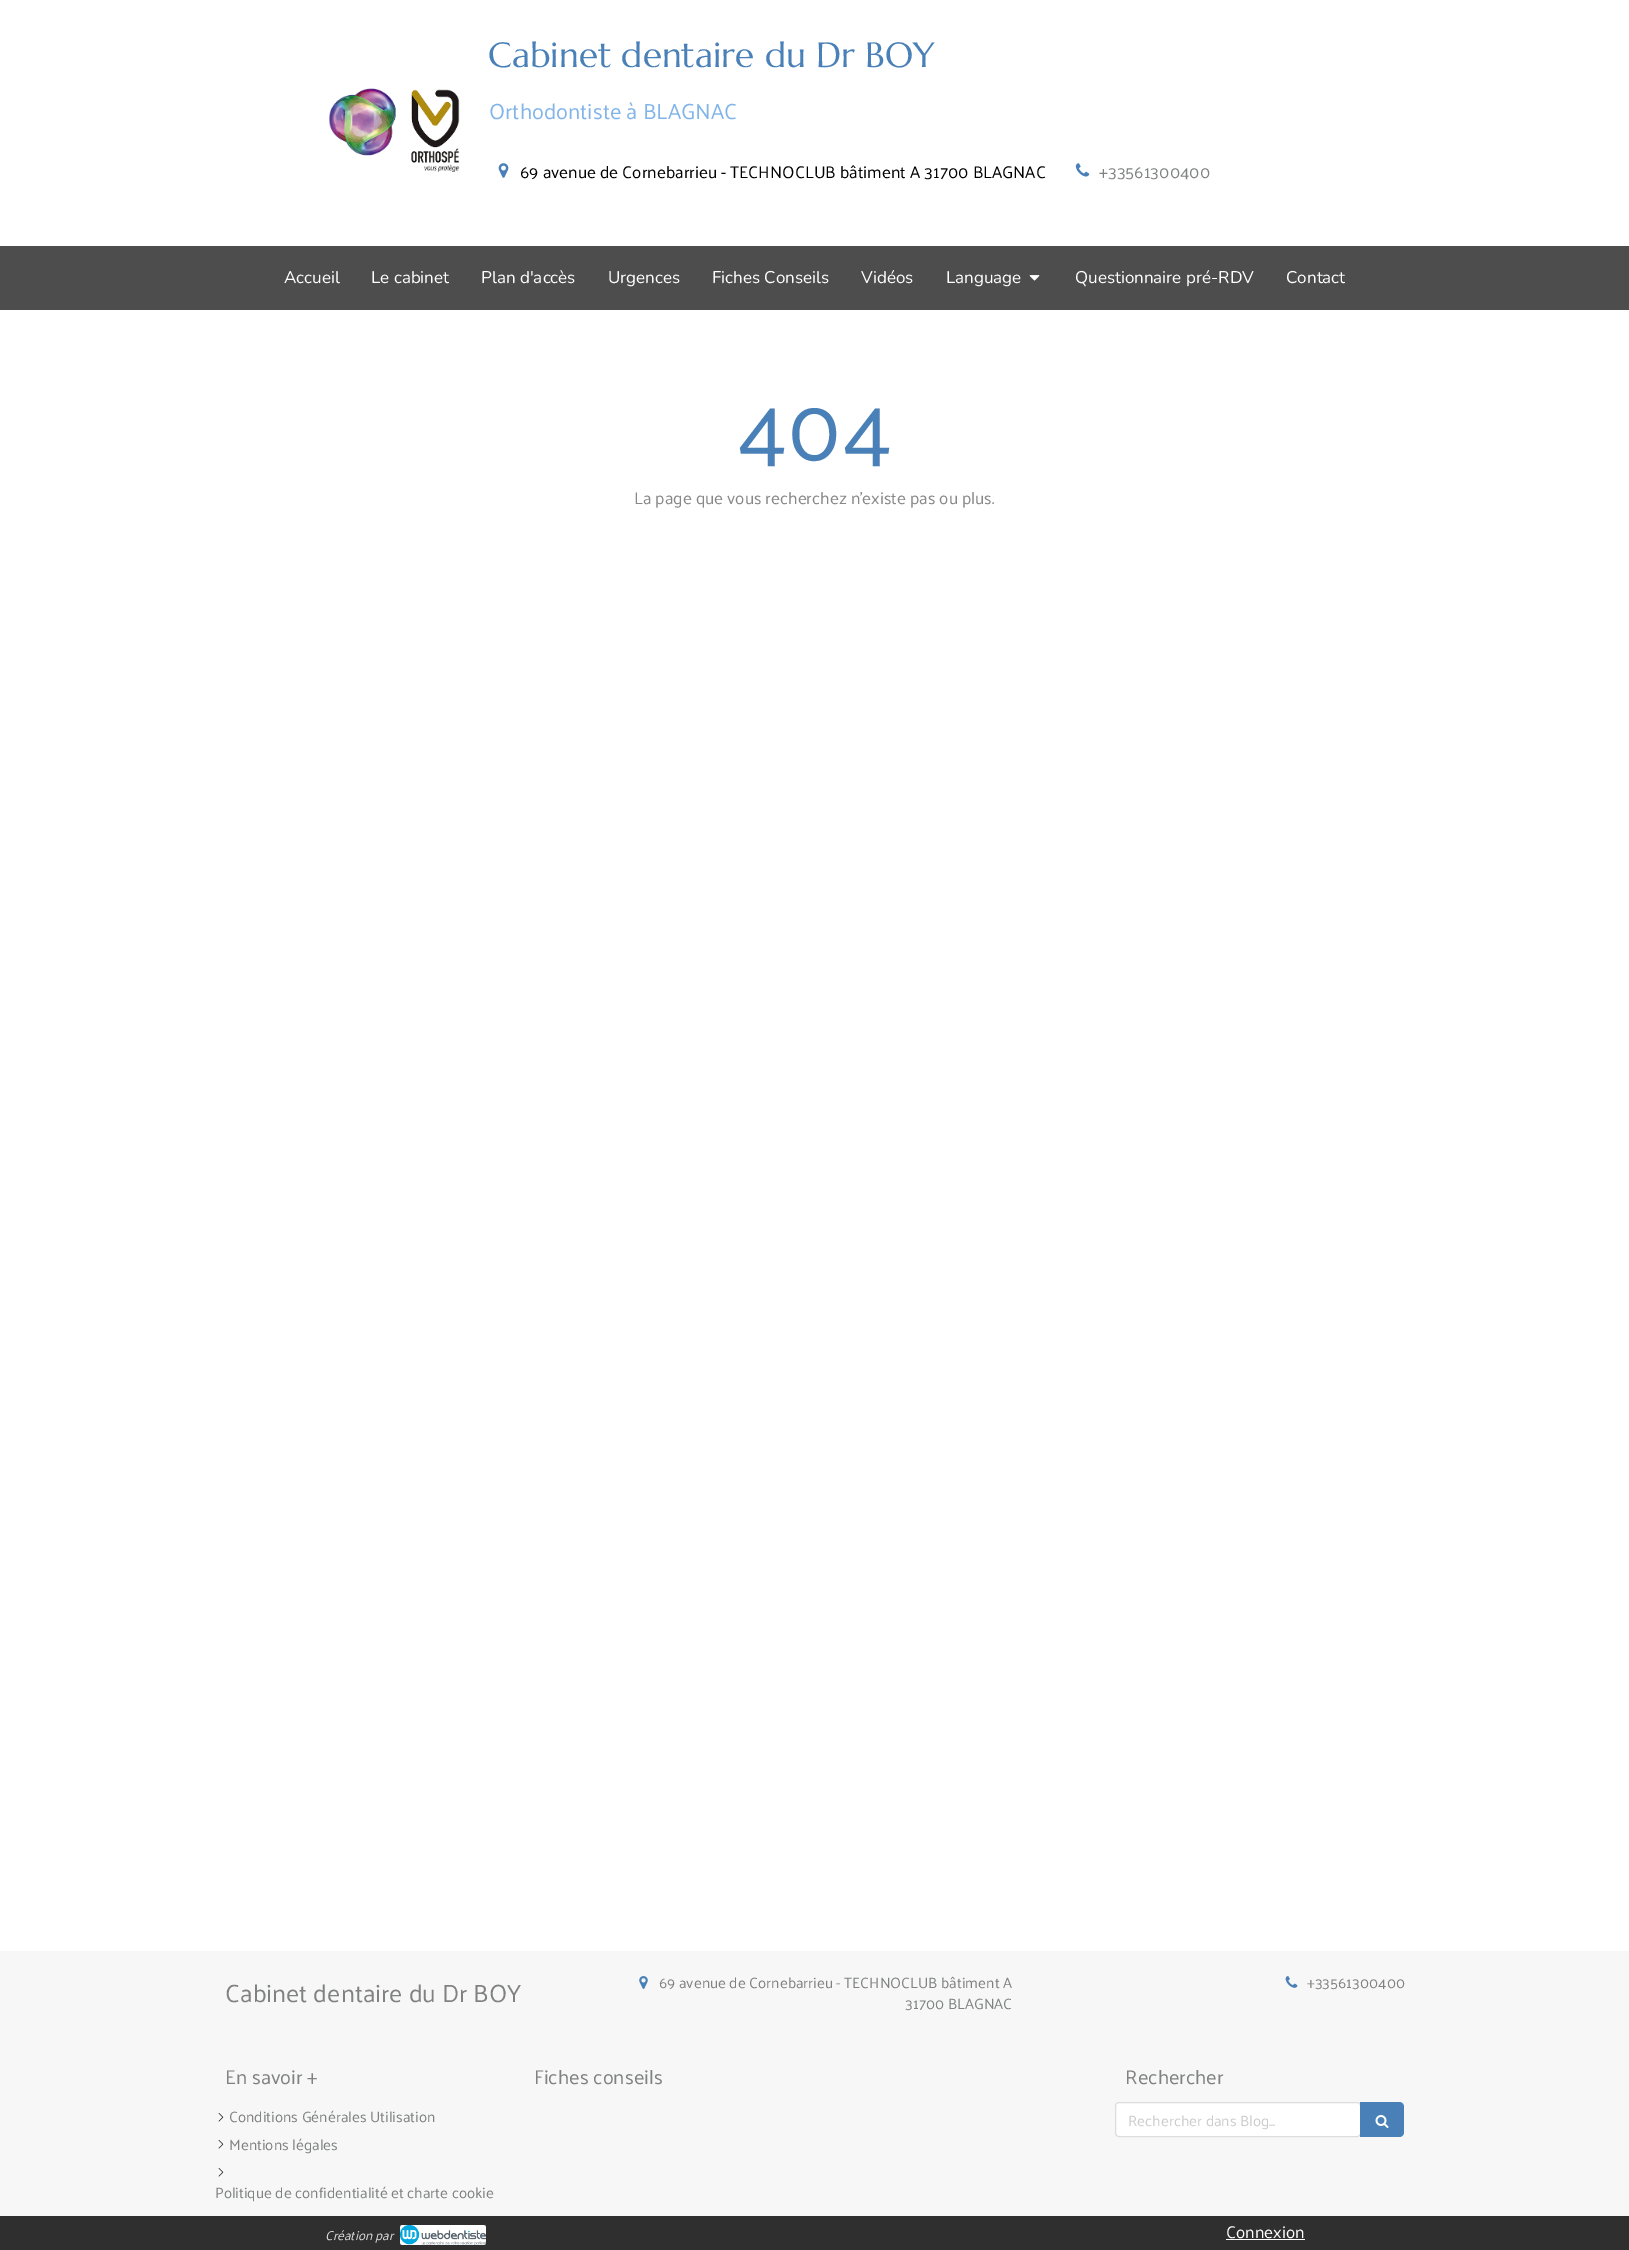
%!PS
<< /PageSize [1629 2250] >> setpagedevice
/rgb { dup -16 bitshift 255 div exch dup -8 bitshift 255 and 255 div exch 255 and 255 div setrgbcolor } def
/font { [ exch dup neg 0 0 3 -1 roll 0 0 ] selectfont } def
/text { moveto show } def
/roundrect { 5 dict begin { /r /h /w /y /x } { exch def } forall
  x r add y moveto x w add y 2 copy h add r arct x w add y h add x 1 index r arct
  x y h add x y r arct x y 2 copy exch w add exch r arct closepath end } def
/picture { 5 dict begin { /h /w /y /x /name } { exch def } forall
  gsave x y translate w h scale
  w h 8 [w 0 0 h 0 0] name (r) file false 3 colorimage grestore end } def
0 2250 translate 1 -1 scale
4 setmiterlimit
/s1 { /Marcellus-Regular 35 font 16#4980B7 rgb } def
/s2 { /Palanquin-Regular 22 font 16#81B5E9 rgb } def
/s3 { /Palanquin-Regular 17 font 16#000000 rgb } def
/s4 { /Palanquin-Regular 17 font 16#808282 rgb } def
/s5 { /Nunito-Regular 17 font 16#FFFFFF rgb } def
/s6 { /Palanquin-Regular 90 font 16#4980B7 rgb } def
/s7 { /Palanquin-Regular 17 font 16#888888 rgb } def
/s8 { /Palanquin-Regular 25 font 16#808282 rgb } def
/s9 { /Palanquin-Regular 15 font 16#808282 rgb } def
/s10 { /Palanquin-Regular 20 font 16#808282 rgb } def
/s11 { /Palanquin-Regular 15 font 16#CCCCCC rgb } def
/s12 { /Palanquin-Italic 13 font 16#DCDCDC rgb } def
/s13 { /Palanquin-Regular 17 font 16#FFFFFF rgb } def
16#FFFFFF rgb
0 0 1629 2250 rectfill
s1
(Cabinet dentaire du Dr BOY) 488 67 text
(pic1.raw) 329 88 131 84 picture
s2
(Orthodontiste à BLAGNAC) 489 119 text
(pic2.raw) 498 163 11 15 picture
s3
(69 avenue de Cornebarrieu - TECHNOCLUB bâtiment A 31700 BLAGNAC) 520 178 text
(pic3.raw) 1075 163 15 14 picture
s4
(+33561300400) 1099 178 text
16#4D4D4D rgb
0 246 1629 64 rectfill
s5
(Accueil) 284 283 text
(Le cabinet) 371 283 text
(Plan d'accès) 481 283 text
(Urgences) 608 283 text
(Fiches Conseils) 712 283 text
(Vidéos) 861 283 text
(Language) 946 283 text
(pic4.raw) 1029 275 11 6 picture
(Questionnaire pré-RDV) 1075 283 text
(Contact) 1286 283 text
s6
(404) 737 460 text
s7
(La page que vous recherchez n’existe pas ou plus.) 634 504 text
16#2F2F2F rgb
0 2216 1629 34 rectfill
16#F7F7F7 rgb
0 1951 1629 265 rectfill
s8
(Cabinet dentaire du Dr BOY) 225 2002 text
(pic5.raw) 639 1976 9 13 picture
s9
(69 avenue de Cornebarrieu - TECHNOCLUB bâtiment A) 659 1988 text
(31700 BLAGNAC) 905 2009 text
(pic6.raw) 1285 1976 13 12 picture
(+33561300400) 1307 1988 text
s10
(En savoir +) 225 2084 text
(pic7.raw) 218 2113 6 9 picture
s9
(Conditions Générales Utilisation) 229 2122 text
(pic7.raw) 218 2140 6 9 picture
(Mentions légales) 229 2150 text
(pic7.raw) 218 2168 6 9 picture
(Politique de confidentialité et charte cookie) 215 2198 text
s10
(Fiches conseils) 534 2084 text
(Rechercher) 1125 2084 text
16#FFFFFF rgb
1115.5 2102.5 245 34 3.5 roundrect gsave fill grestore
16#DDDDDD rgb
stroke
s11
(Rechercher dans Blog...) 1128 2126 text
16#4980B7 rgb
1360 2102 moveto 1399 2102 lineto 1402 2102 1404 2104 1404 2107 curveto 1404 2132 lineto 1404 2135 1402 2137 1399 2137 curveto 1360 2137 lineto closepath fill
(pic8.raw) 1375 2115 14 13 picture
s12
(Création par) 325 2240 text
(pic9.raw) 400 2225 86 20 picture
s13
(Connexion) 1226 2238 text
1226 2239 79 1 rectfill
showpage
